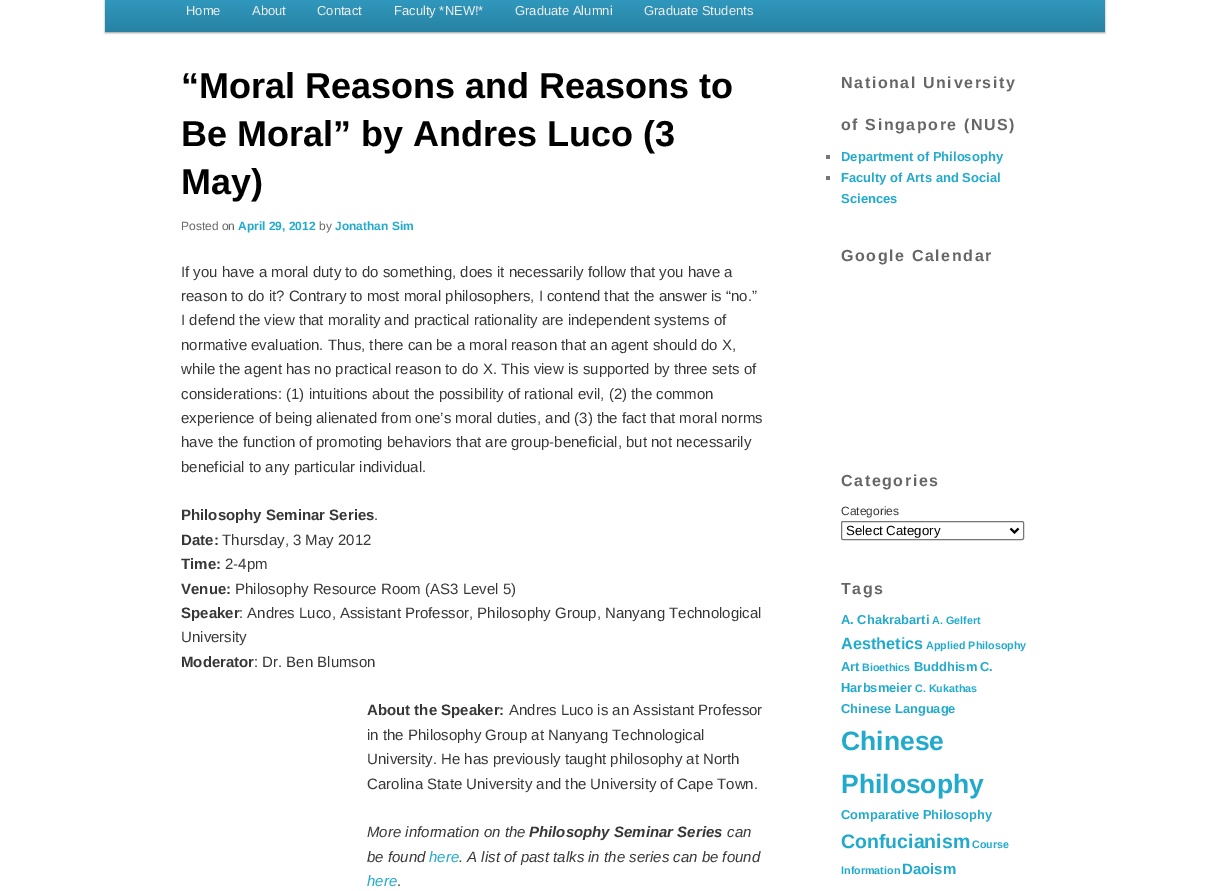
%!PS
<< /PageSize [1209 891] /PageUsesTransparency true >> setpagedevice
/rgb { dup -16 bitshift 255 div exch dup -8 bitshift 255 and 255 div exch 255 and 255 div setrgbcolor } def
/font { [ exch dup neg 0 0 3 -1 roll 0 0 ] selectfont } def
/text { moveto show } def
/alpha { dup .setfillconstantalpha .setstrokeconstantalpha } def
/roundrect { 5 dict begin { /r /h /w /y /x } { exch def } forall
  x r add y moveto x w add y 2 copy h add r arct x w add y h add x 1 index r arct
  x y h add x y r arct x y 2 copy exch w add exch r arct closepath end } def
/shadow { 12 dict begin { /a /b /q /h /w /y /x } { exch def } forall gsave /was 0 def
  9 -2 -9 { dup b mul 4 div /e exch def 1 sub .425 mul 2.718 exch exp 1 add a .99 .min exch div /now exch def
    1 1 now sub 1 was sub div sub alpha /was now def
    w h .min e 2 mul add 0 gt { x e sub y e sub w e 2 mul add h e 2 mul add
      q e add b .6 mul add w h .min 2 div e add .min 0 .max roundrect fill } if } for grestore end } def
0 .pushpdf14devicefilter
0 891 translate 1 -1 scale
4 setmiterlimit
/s1 { /LiberationSans-Regular 13 font 16#EEEEEE rgb } def
/s2 { /LiberationSans-Bold 36 font 16#000000 rgb } def
/s3 { /LiberationSans-Regular 12 font 16#666666 rgb } def
/s4 { /LiberationSans-Bold 12 font 16#22AACC rgb } def
/s5 { /LiberationSans-Regular 15 font 16#373737 rgb } def
/s6 { /LiberationSans-Bold 15 font 16#373737 rgb } def
/s7 { /LiberationSans-Italic 15 font 16#373737 rgb } def
/s8 { /LiberationSans-BoldItalic 15 font 16#373737 rgb } def
/s9 { /LiberationSans-Italic 15 font 16#22AACC rgb } def
/s10 { /LiberationSans-Bold 13 font 16#22AACC rgb } def
/s11 { /LiberationSans-Regular 12 font 16#373737 rgb } def
/s12 { /LiberationSans-Regular 13.25 font 16#000000 rgb } def
/s13 { /LiberationSans-Bold 12.9 font 16#22AACC rgb } def
/s14 { /LiberationSans-Bold 10.75 font 16#22AACC rgb } def
/s15 { /LiberationSans-Bold 16.25 font 16#22AACC rgb } def
/s16 { /LiberationSans-Bold 26.5 font 16#22AACC rgb } def
/s17 { /LiberationSans-Bold 19.5 font 16#22AACC rgb } def
/s18 { /LiberationSans-Bold 15 font 16#22AACC rgb } def
16#FFFFFF rgb
0 0 1209 891 rectfill
16#000000 rgb
105 -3 1000 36 0 1 0.4 shadow
gsave 105 0 moveto 1105 0 lineto 1105 32 lineto 105 32 lineto closepath clip newpath
<< /ShadingType 2 /ColorSpace /DeviceRGB /Coords [605 -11 605 32] /Extend [true true] /Function << /FunctionType 2 /Domain [0 1] /C0 [0.2 0.624 0.776] /C1 [0.157 0.51 0.639] /N 1 >> >> shfill grestore
s1
(Home) 186 15 text
(About) 252 15 text
(Contact) 317 15 text
(Faculty *NEW!*) 394 15 text
(Graduate Alumni) 515 15 text
(Graduate Students) 644 15 text
s2
(“Moral Reasons and Reasons to) 181 98 text
(Be Moral” by Andres Luco \(3) 181 146 text
(May\)) 181 194 text
s3
(Posted on) 181 230 text
s4
(April 29, 2012) 238 230 text
s3
(by) 319 230 text
s4
(Jonathan Sim) 335 230 text
s5
(If you have a moral duty to do something, does it necessarily follow that you have a) 181 277 text
(reason to do it? Contrary to most moral philosophers, I contend that the answer is “no.”) 181 301 text
(I defend the view that morality and practical rationality are independent systems of) 181 325 text
(normative evaluation. Thus, there can be a moral reason that an agent should do X,) 181 350 text
(while the agent has no practical reason to do X. This view is supported by three sets of) 181 374 text
(considerations: \(1\) intuitions about the possibility of rational evil, \(2\) the common) 181 399 text
(experience of being alienated from one’s moral duties, and \(3\) the fact that moral norms) 181 423 text
(have the function of promoting behaviors that are group-beneficial, but not necessarily) 181 447 text
(beneficial to any particular individual.) 181 472 text
s6
(Philosophy Seminar Series) 181 520 text
s5
(.) 374 520 text
s6
(Date:) 181 545 text
s5
(Thursday, 3 May 2012) 222 545 text
s6
(Time:) 181 569 text
s5
(2-4pm) 225 569 text
s6
(Venue:) 181 594 text
s5
(Philosophy Resource Room \(AS3 Level 5\)) 235 594 text
s6
(Speaker) 181 618 text
s5
(: Andres Luco, Assistant Professor, Philosophy Group, Nanyang Technological) 239 618 text
(University) 181 642 text
s6
(Moderator) 181 667 text
s5
(: Dr. Ben Blumson) 254 667 text
s6
(About the Speaker:) 367 715 text
s5
(Andres Luco is an Assistant Professor) 509 715 text
(in the Philosophy Group at Nanyang Technological) 367 740 text
(University. He has previously taught philosophy at North) 367 764 text
(Carolina State University and the University of Cape Town.) 367 789 text
s7
(More information on the) 367 837 text
s8
(Philosophy Seminar Series) 529 837 text
s7
(can) 727 837 text
(be found) 367 862 text
s9
(here) 429 862 text
s7
(. A list of past talks in the series can be found) 459 862 text
s9
(here) 367 886 text
s5
(.) 397 886 text
/LiberationSans-Bold 16 font
16#666666 rgb
841 88 moveto 1.6 0 (National University) ashow
841 130 moveto 1.6 0 (of Singapore \(NUS\)) ashow
16#777777 rgb
826 155 4 4 rectfill
s10
(Department of Philosophy) 841 161 text
16#777777 rgb
826 176 4 4 rectfill
s10
(Faculty of Arts and Social) 841 182 text
(Sciences) 841 203 text
/LiberationSans-Bold 16 font
16#666666 rgb
841 261 moveto 1.6 0 (Google Calendar) ashow
841 486 moveto 1.6 0 (Categories) ashow
s11
(Categories) 841 515 text
16#767676 rgb
841.5 521.5 182 18 1.5 roundrect stroke
16#000000 rgb
2 setlinewidth
1010.5 528.5 moveto 1014.5 532.5 lineto 1018.5 528.5 lineto stroke
s12
(Select Category) 846 535 text
/LiberationSans-Bold 16 font
16#666666 rgb
841 594 moveto 1.6 0 (Tags) ashow
s13
(A. Chakrabarti) 841 624 text
s14
(A. Gelfert) 932 624 text
s15
(Aesthetics) 841 649 text
s14
(Applied Philosophy) 926 649 text
s13
(Art) 841 671 text
s14
(Bioethics) 862 671 text
s13
(Buddhism) 914 671 text
(C.) 980 671 text
(Harbsmeier) 841 692 text
s14
(C. Kukathas) 915 692 text
s13
(Chinese Language) 841 713 text
s16
(Chinese) 841 750 text
(Philosophy) 841 793 text
s13
(Comparative Philosophy) 841 819 text
s17
(Confucianism) 841 848 text
s14
(Course) 972 848 text
(Information) 841 874 text
s18
(Daoism) 902 874 text
.poppdf14devicefilter showpage
